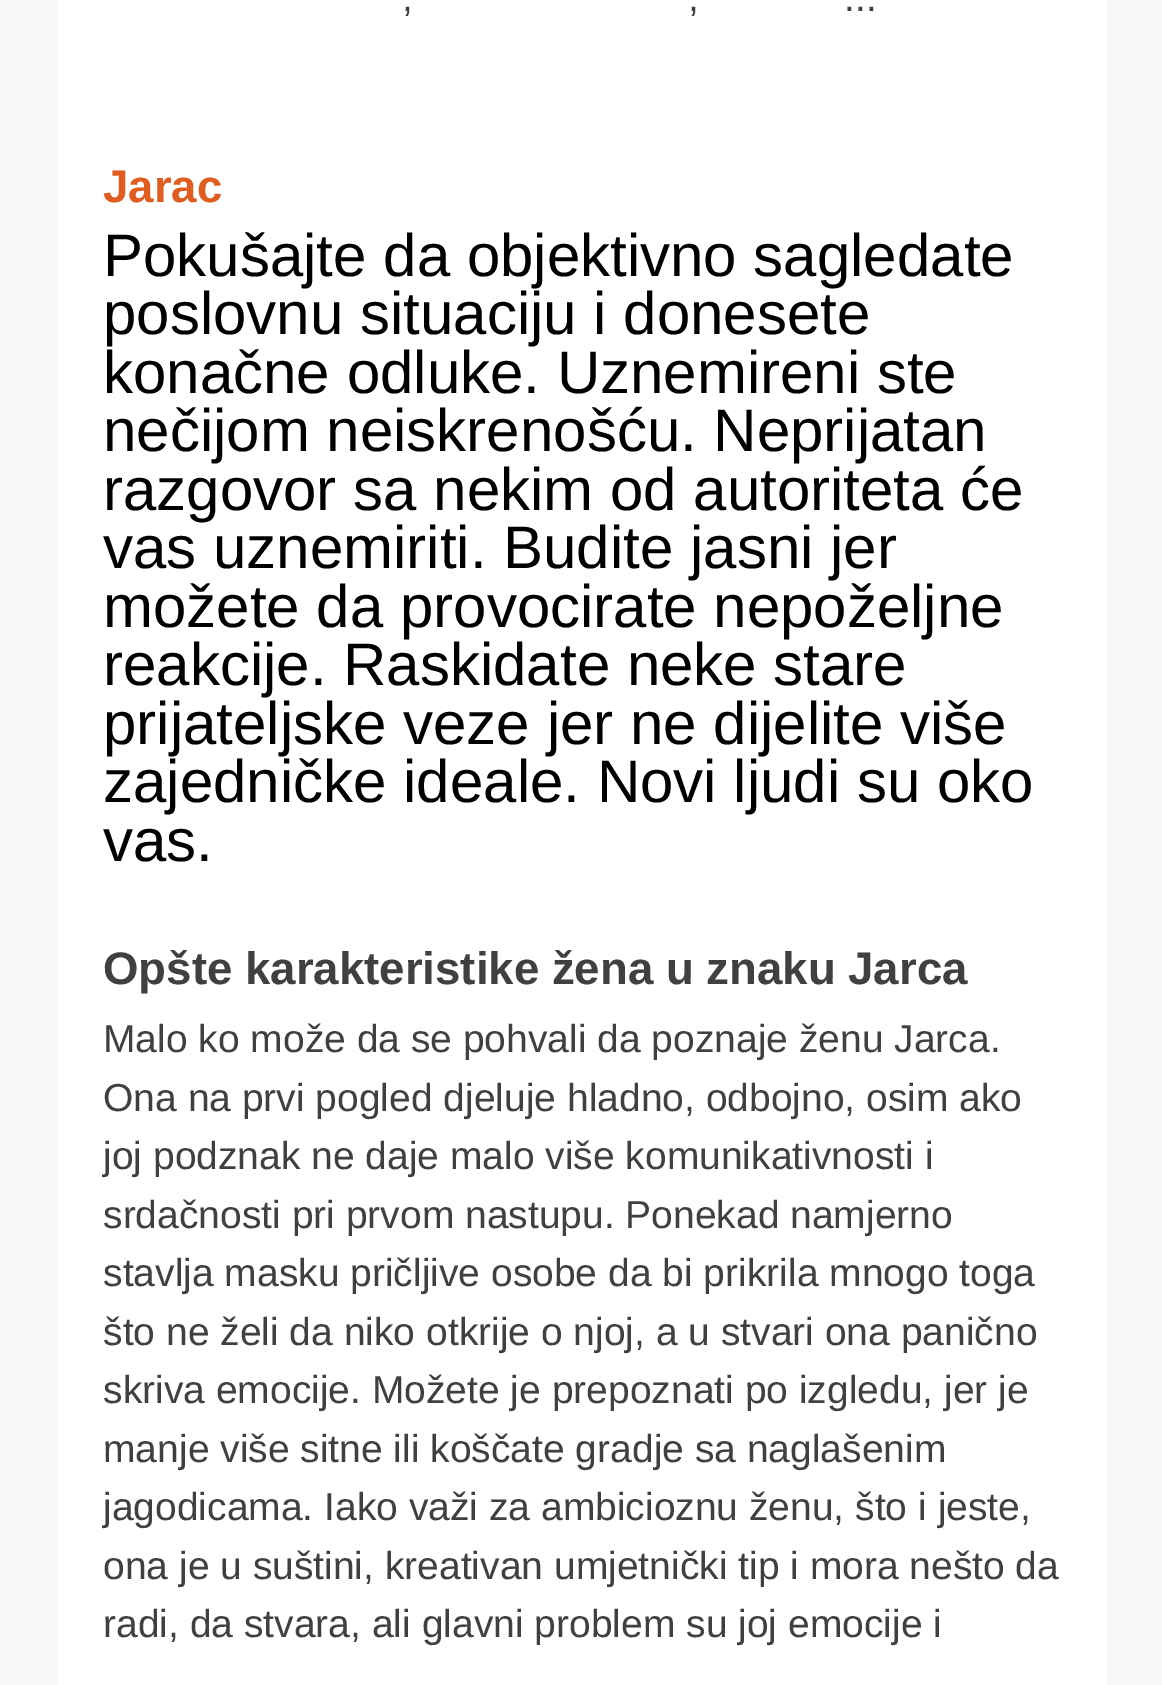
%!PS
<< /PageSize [1162 1685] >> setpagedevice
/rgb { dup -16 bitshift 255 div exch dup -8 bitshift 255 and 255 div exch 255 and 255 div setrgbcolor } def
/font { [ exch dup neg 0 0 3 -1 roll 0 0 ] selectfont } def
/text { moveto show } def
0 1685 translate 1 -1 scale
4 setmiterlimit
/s1 { /LiberationSans-Regular 39 font 16#404040 rgb } def
/s2 { /LiberationSans-Bold 45.6 font 16#E05D1F rgb } def
/s3 { /LiberationSans-Regular 60 font 16#000000 rgb } def
/s4 { /LiberationSans-Bold 45.6 font 16#404040 rgb } def
16#F8F8F8 rgb
0 0 1162 1685 rectfill
16#FFFFFF rgb
57 0 1050 1685 rectfill
s1
(,) 402 11 text
(,) 688 11 text
(...) 844 11 text
s2
(Jarac) 103 202 text
s3
(Pokušajte da objektivno sagledate) 103 276 text
(poslovnu situaciju i donesete) 103 334 text
(konačne odluke. Uznemireni ste) 103 393 text
(nečijom neiskrenošću. Neprijatan) 103 451 text
(razgovor sa nekim od autoriteta će) 103 510 text
(vas uznemiriti. Budite jasni jer) 103 568 text
(možete da provocirate nepoželjne) 103 627 text
(reakcije. Raskidate neke stare) 103 685 text
(prijateljske veze jer ne dijelite više) 103 744 text
(zajedničke ideale. Novi ljudi su oko) 103 802 text
(vas.) 103 861 text
s4
(Opšte karakteristike žena u znaku Jarca) 103 984 text
s1
(Malo ko može da se pohvali da poznaje ženu Jarca.) 103 1052 text
(Ona na prvi pogled djeluje hladno, odbojno, osim ako) 103 1111 text
(joj podznak ne daje malo više komunikativnosti i) 103 1169 text
(srdačnosti pri prvom nastupu. Ponekad namjerno) 103 1228 text
(stavlja masku pričljive osobe da bi prikrila mnogo toga) 103 1286 text
(što ne želi da niko otkrije o njoj, a u stvari ona panično) 103 1345 text
(skriva emocije. Možete je prepoznati po izgledu, jer je) 103 1403 text
(manje više sitne ili koščate gradje sa naglašenim) 103 1462 text
(jagodicama. Iako važi za ambicioznu ženu, što i jeste,) 103 1520 text
(ona je u suštini, kreativan umjetnički tip i mora nešto da) 103 1579 text
(radi, da stvara, ali glavni problem su joj emocije i) 103 1637 text
showpage
